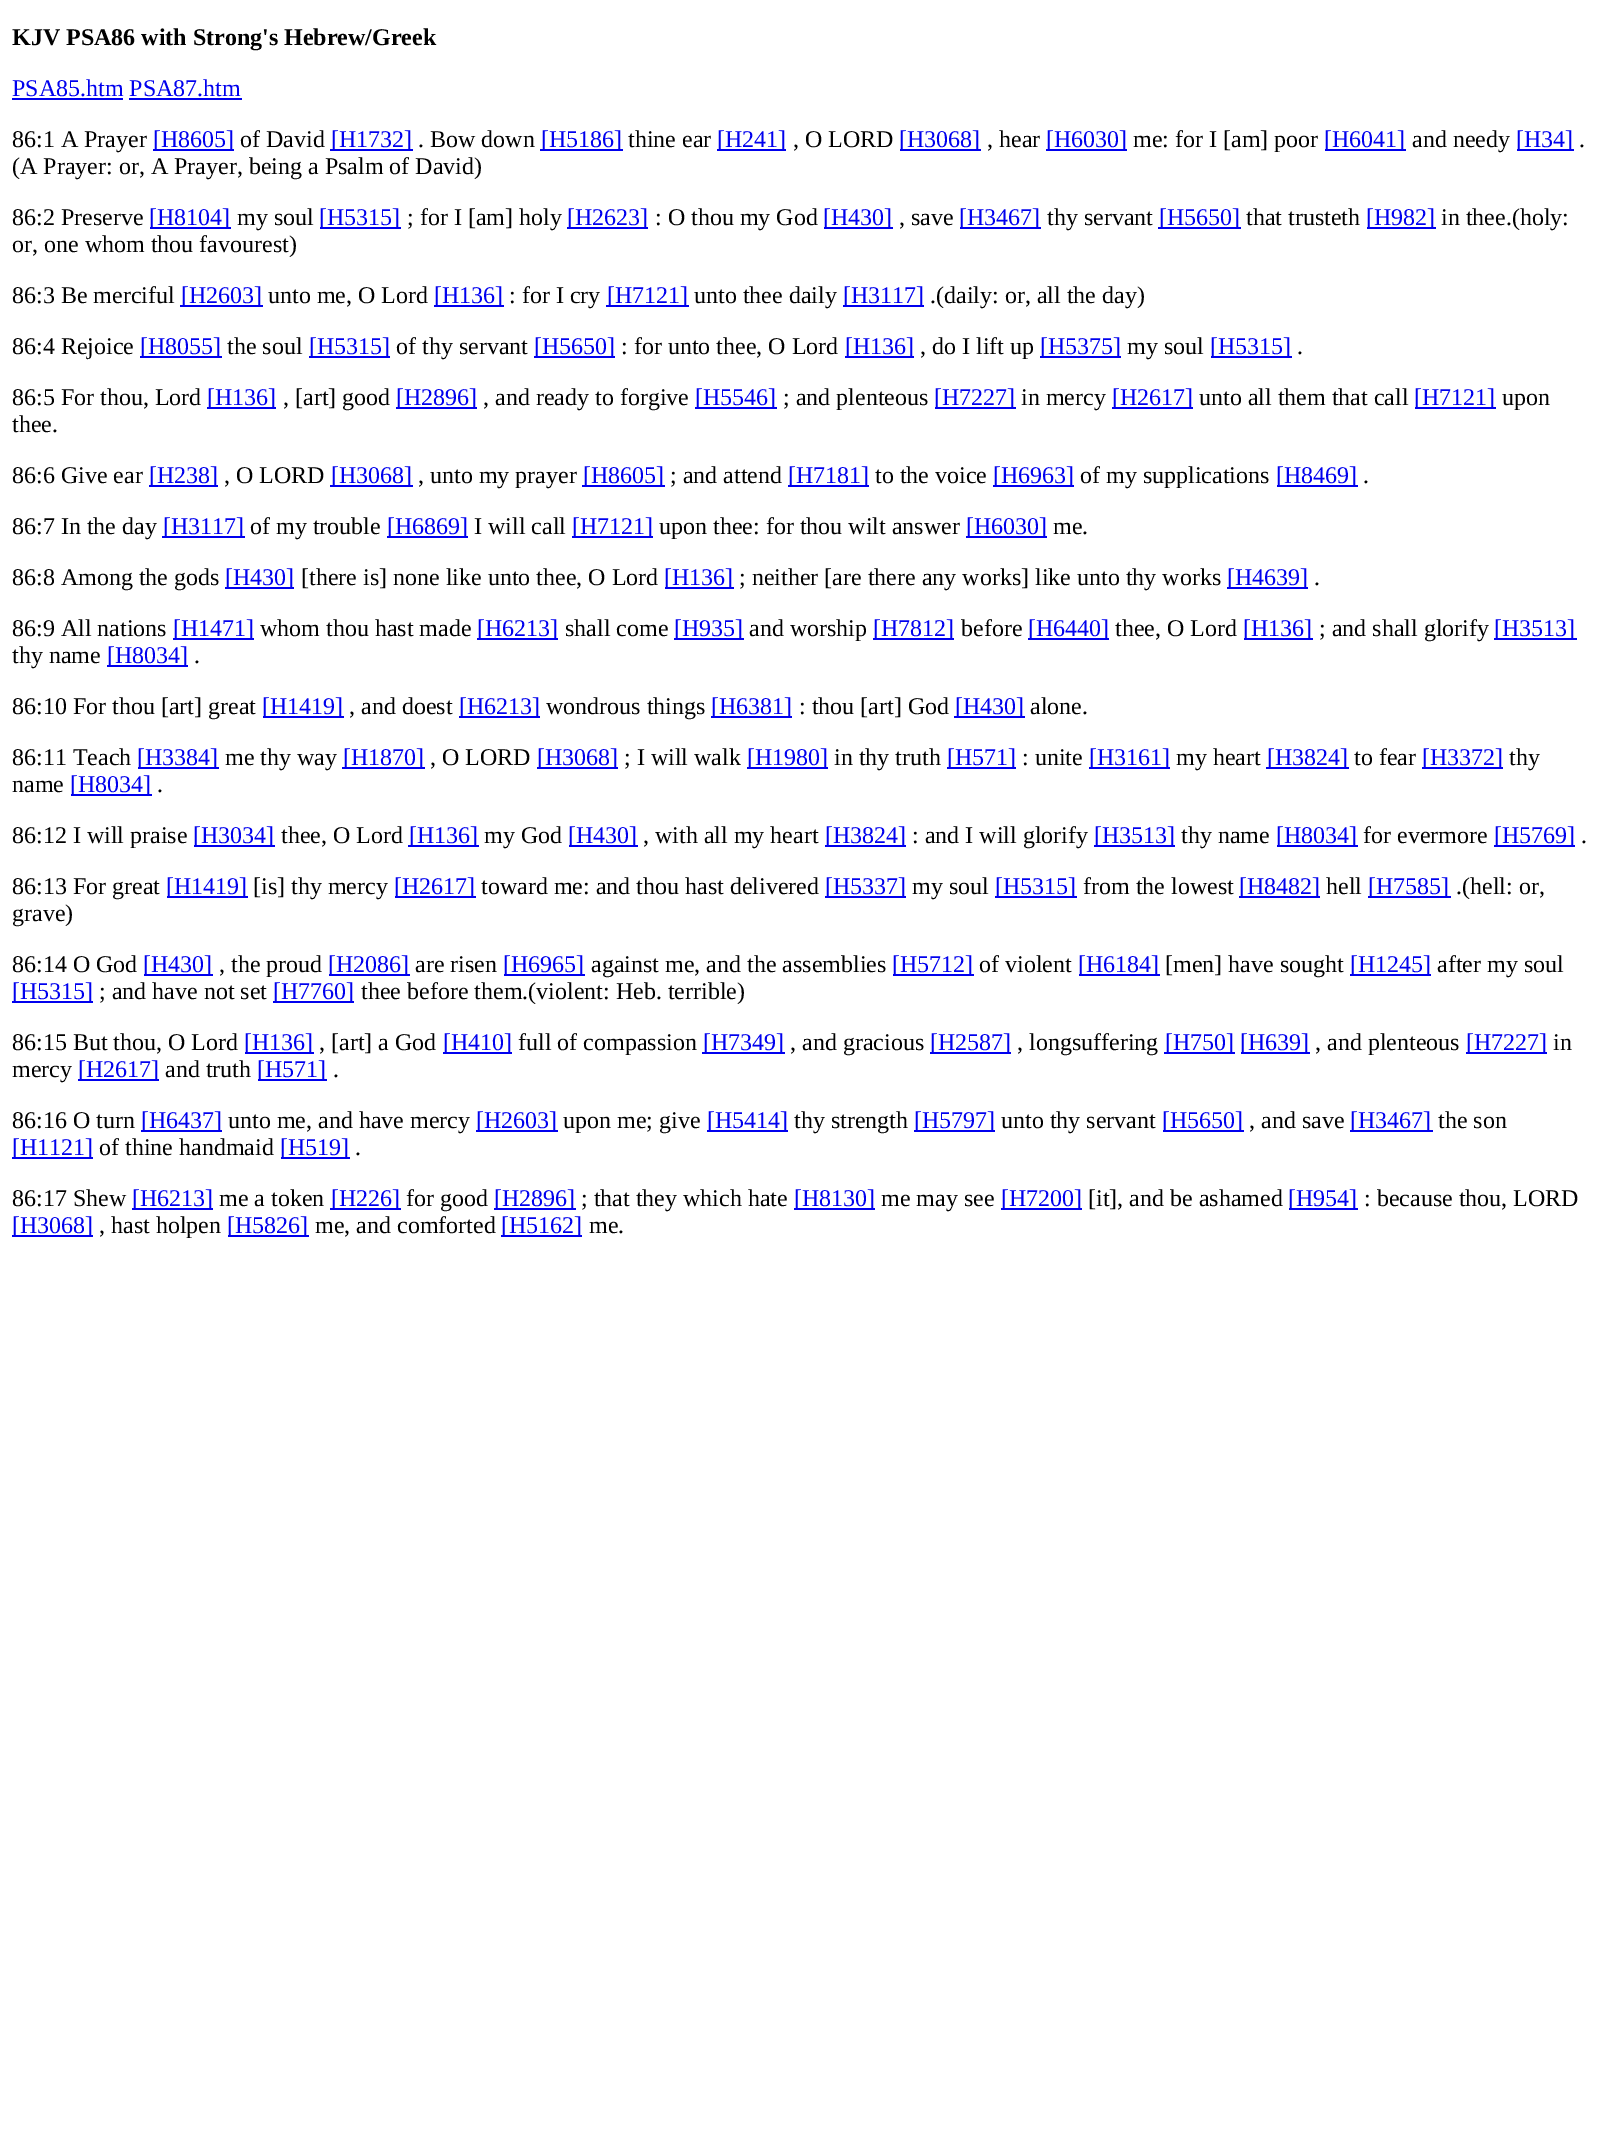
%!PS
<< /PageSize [1604 2151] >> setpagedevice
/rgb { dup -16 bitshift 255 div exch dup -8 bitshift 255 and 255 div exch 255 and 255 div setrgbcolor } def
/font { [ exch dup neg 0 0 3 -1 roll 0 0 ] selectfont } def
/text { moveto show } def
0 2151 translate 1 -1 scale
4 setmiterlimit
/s1 { /LiberationSerif-Bold 24 font 16#000000 rgb } def
/s2 { /LiberationSerif-Regular 24 font 16#0000EE rgb } def
/s3 { /LiberationSerif-Regular 24 font 16#000000 rgb } def
16#FFFFFF rgb
0 0 1604 2151 rectfill
s1
(KJV PSA86 with Strong's Hebrew/Greek) 12 45 text
s2
(PSA85.htm PSA87.htm) 12 96 text
12 98 111 2 rectfill
129 98 113 2 rectfill
s3
(86:1 A Prayer) 12 147 text
16#0000EE rgb
153 149 81 2 rectfill
([H8605]) 153 147 text
s3
(of David) 240 147 text
16#0000EE rgb
330 149 83 2 rectfill
([H1732]) 331 147 text
s3
(. Bow down) 418 147 text
16#0000EE rgb
540 149 83 2 rectfill
([H5186]) 541 147 text
s3
(thine ear) 628 147 text
16#0000EE rgb
717 149 69 2 rectfill
([H241]) 717 147 text
s3
(, O LORD) 793 147 text
16#0000EE rgb
900 149 81 2 rectfill
([H3068]) 899 147 text
s3
(, hear) 987 147 text
16#0000EE rgb
1046 149 81 2 rectfill
([H6030]) 1046 147 text
s3
(me: for I [am] poor) 1133 147 text
16#0000EE rgb
1325 149 81 2 rectfill
([H6041]) 1324 147 text
s3
(and needy) 1412 147 text
16#0000EE rgb
1517 149 57 2 rectfill
([H34]) 1516 147 text
s3
(.) 1579 147 text
(\(A Prayer: or, A Prayer, being a Psalm of David\)) 12 174 text
(86:2 Preserve) 12 225 text
16#0000EE rgb
150 227 81 2 rectfill
([H8104]) 149 225 text
s3
(my soul) 237 225 text
16#0000EE rgb
320 227 81 2 rectfill
([H5315]) 319 225 text
s3
(; for I [am] holy) 407 225 text
16#0000EE rgb
567 227 81 2 rectfill
([H2623]) 567 225 text
s3
(: O thou my God) 655 225 text
16#0000EE rgb
824 227 69 2 rectfill
([H430]) 823 225 text
s3
(, save) 899 225 text
16#0000EE rgb
960 227 81 2 rectfill
([H3467]) 959 225 text
s3
(thy servant) 1047 225 text
16#0000EE rgb
1158 227 83 2 rectfill
([H5650]) 1159 225 text
s3
(that trusteth) 1246 225 text
16#0000EE rgb
1367 227 69 2 rectfill
([H982]) 1366 225 text
s3
(in thee.\(holy:) 1441 225 text
(or, one whom thou favourest\)) 12 252 text
(86:3 Be merciful) 12 303 text
16#0000EE rgb
180 305 83 2 rectfill
([H2603]) 181 303 text
s3
(unto me, O Lord) 268 303 text
16#0000EE rgb
434 305 70 2 rectfill
([H136]) 434 303 text
s3
(: for I cry) 509 303 text
16#0000EE rgb
606 305 83 2 rectfill
([H7121]) 607 303 text
s3
(unto thee daily) 694 303 text
16#0000EE rgb
843 305 81 2 rectfill
([H3117]) 843 303 text
s3
(.\(daily: or, all the day\)) 930 303 text
(86:4 Rejoice) 12 354 text
16#0000EE rgb
140 356 82 2 rectfill
([H8055]) 140 354 text
s3
(the soul) 227 354 text
16#0000EE rgb
309 356 81 2 rectfill
([H5315]) 309 354 text
s3
(of thy servant) 396 354 text
16#0000EE rgb
534 356 81 2 rectfill
([H5650]) 534 354 text
s3
(: for unto thee, O Lord) 621 354 text
16#0000EE rgb
845 356 69 2 rectfill
([H136]) 845 354 text
s3
(, do I lift up) 920 354 text
16#0000EE rgb
1040 356 81 2 rectfill
([H5375]) 1040 354 text
s3
(my soul) 1127 354 text
16#0000EE rgb
1211 356 81 2 rectfill
([H5315]) 1210 354 text
s3
(.) 1297 354 text
(86:5 For thou, Lord) 12 405 text
16#0000EE rgb
207 407 69 2 rectfill
([H136]) 207 405 text
s3
(, [art] good) 283 405 text
16#0000EE rgb
396 407 81 2 rectfill
([H2896]) 396 405 text
s3
(, and ready to forgive) 483 405 text
16#0000EE rgb
695 407 82 2 rectfill
([H5546]) 695 405 text
s3
(; and plenteous) 783 405 text
16#0000EE rgb
935 407 81 2 rectfill
([H7227]) 934 405 text
s3
(in mercy) 1021 405 text
16#0000EE rgb
1112 407 81 2 rectfill
([H2617]) 1112 405 text
s3
(unto all them that call) 1199 405 text
16#0000EE rgb
1415 407 81 2 rectfill
([H7121]) 1414 405 text
s3
(upon) 1502 405 text
(thee.) 12 432 text
(86:6 Give ear) 12 483 text
16#0000EE rgb
149 485 69 2 rectfill
([H238]) 149 483 text
s3
(, O LORD) 224 483 text
16#0000EE rgb
330 485 83 2 rectfill
([H3068]) 331 483 text
s3
(, unto my prayer) 418 483 text
16#0000EE rgb
582 485 83 2 rectfill
([H8605]) 583 483 text
s3
(; and attend) 670 483 text
16#0000EE rgb
788 485 81 2 rectfill
([H7181]) 788 483 text
s3
(to the voice) 875 483 text
16#0000EE rgb
993 485 81 2 rectfill
([H6963]) 993 483 text
s3
(of my supplications) 1080 483 text
16#0000EE rgb
1277 485 81 2 rectfill
([H8469]) 1276 483 text
s3
(.) 1363 483 text
(86:7 In the day) 12 534 text
16#0000EE rgb
162 536 83 2 rectfill
([H3117]) 163 534 text
s3
(of my trouble) 250 534 text
16#0000EE rgb
387 536 81 2 rectfill
([H6869]) 387 534 text
s3
(I will call) 474 534 text
16#0000EE rgb
572 536 81 2 rectfill
([H7121]) 572 534 text
s3
(upon thee: for thou wilt answer) 659 534 text
16#0000EE rgb
966 536 81 2 rectfill
([H6030]) 966 534 text
s3
(me.) 1053 534 text
(86:8 Among the gods) 12 585 text
16#0000EE rgb
225 587 69 2 rectfill
([H430]) 225 585 text
s3
([there is] none like unto thee, O Lord) 301 585 text
16#0000EE rgb
665 587 69 2 rectfill
([H136]) 664 585 text
s3
(; neither [are there any works] like unto thy works) 739 585 text
16#0000EE rgb
1227 587 81 2 rectfill
([H4639]) 1227 585 text
s3
(.) 1314 585 text
(86:9 All nations) 12 636 text
16#0000EE rgb
173 638 81 2 rectfill
([H1471]) 173 636 text
s3
(whom thou hast made) 260 636 text
16#0000EE rgb
477 638 81 2 rectfill
([H6213]) 477 636 text
s3
(shall come) 565 636 text
16#0000EE rgb
674 638 70 2 rectfill
([H935]) 674 636 text
s3
(and worship) 749 636 text
16#0000EE rgb
873 638 81 2 rectfill
([H7812]) 873 636 text
s3
(before) 961 636 text
16#0000EE rgb
1028 638 81 2 rectfill
([H6440]) 1028 636 text
s3
(thee, O Lord) 1115 636 text
16#0000EE rgb
1244 638 69 2 rectfill
([H136]) 1243 636 text
s3
(; and shall glorify) 1319 636 text
16#0000EE rgb
1494 638 83 2 rectfill
([H3513]) 1494 636 text
s3
(thy name) 12 663 text
16#0000EE rgb
107 665 81 2 rectfill
([H8034]) 107 663 text
s3
(.) 194 663 text
(86:10 For thou [art] great) 12 714 text
16#0000EE rgb
263 716 81 2 rectfill
([H1419]) 262 714 text
s3
(, and doest) 349 714 text
16#0000EE rgb
459 716 81 2 rectfill
([H6213]) 459 714 text
s3
(wondrous things) 546 714 text
16#0000EE rgb
711 716 81 2 rectfill
([H6381]) 711 714 text
s3
(: thou [art] God) 799 714 text
16#0000EE rgb
954 716 71 2 rectfill
([H430]) 955 714 text
s3
(alone.) 1030 714 text
(86:11 Teach) 12 765 text
16#0000EE rgb
138 767 81 2 rectfill
([H3384]) 137 765 text
s3
(me thy way) 225 765 text
16#0000EE rgb
342 767 83 2 rectfill
([H1870]) 343 765 text
s3
(, O LORD) 430 765 text
16#0000EE rgb
537 767 81 2 rectfill
([H3068]) 537 765 text
s3
(; I will walk) 624 765 text
16#0000EE rgb
747 767 81 2 rectfill
([H1980]) 747 765 text
s3
(in thy truth) 834 765 text
16#0000EE rgb
947 767 69 2 rectfill
([H571]) 947 765 text
s3
(: unite) 1022 765 text
16#0000EE rgb
1089 767 81 2 rectfill
([H3161]) 1089 765 text
s3
(my heart) 1176 765 text
16#0000EE rgb
1266 767 83 2 rectfill
([H3824]) 1267 765 text
s3
(to fear) 1354 765 text
16#0000EE rgb
1422 767 81 2 rectfill
([H3372]) 1422 765 text
s3
(thy) 1509 765 text
(name) 12 792 text
16#0000EE rgb
71 794 81 2 rectfill
([H8034]) 70 792 text
s3
(.) 157 792 text
(86:12 I will praise) 12 843 text
16#0000EE rgb
194 845 81 2 rectfill
([H3034]) 193 843 text
s3
(thee, O Lord) 281 843 text
16#0000EE rgb
408 845 71 2 rectfill
([H136]) 409 843 text
s3
(my God) 484 843 text
16#0000EE rgb
569 845 69 2 rectfill
([H430]) 568 843 text
s3
(, with all my heart) 643 843 text
16#0000EE rgb
825 845 81 2 rectfill
([H3824]) 825 843 text
s3
(: and I will glorify) 912 843 text
16#0000EE rgb
1094 845 81 2 rectfill
([H3513]) 1094 843 text
s3
(thy name) 1181 843 text
16#0000EE rgb
1277 845 81 2 rectfill
([H8034]) 1276 843 text
s3
(for evermore) 1363 843 text
16#0000EE rgb
1494 845 81 2 rectfill
([H5769]) 1494 843 text
s3
(.) 1581 843 text
(86:13 For great) 12 894 text
16#0000EE rgb
167 896 81 2 rectfill
([H1419]) 166 894 text
s3
([is] thy mercy) 253 894 text
16#0000EE rgb
395 896 81 2 rectfill
([H2617]) 394 894 text
s3
(toward me: and thou hast delivered) 481 894 text
16#0000EE rgb
825 896 81 2 rectfill
([H5337]) 825 894 text
s3
(my soul) 912 894 text
16#0000EE rgb
995 896 82 2 rectfill
([H5315]) 995 894 text
s3
(from the lowest) 1083 894 text
16#0000EE rgb
1239 896 81 2 rectfill
([H8482]) 1239 894 text
s3
(hell) 1326 894 text
16#0000EE rgb
1368 896 83 2 rectfill
([H7585]) 1368 894 text
s3
(.\(hell: or,) 1456 894 text
(grave\)) 12 921 text
(86:14 O God) 12 972 text
16#0000EE rgb
144 974 69 2 rectfill
([H430]) 143 972 text
s3
(, the proud) 219 972 text
16#0000EE rgb
329 974 81 2 rectfill
([H2086]) 328 972 text
s3
(are risen) 415 972 text
16#0000EE rgb
504 974 81 2 rectfill
([H6965]) 503 972 text
s3
(against me, and the assemblies) 591 972 text
16#0000EE rgb
893 974 81 2 rectfill
([H5712]) 892 972 text
s3
(of violent) 979 972 text
16#0000EE rgb
1079 974 81 2 rectfill
([H6184]) 1078 972 text
s3
([men] have sought) 1165 972 text
16#0000EE rgb
1350 974 81 2 rectfill
([H1245]) 1350 972 text
s3
(after my soul) 1437 972 text
16#0000EE rgb
12 1001 81 2 rectfill
([H5315]) 12 999 text
s3
(; and have not set) 99 999 text
16#0000EE rgb
273 1001 81 2 rectfill
([H7760]) 273 999 text
s3
(thee before them.\(violent: Heb. terrible\)) 361 999 text
(86:15 But thou, O Lord) 12 1050 text
16#0000EE rgb
245 1052 69 2 rectfill
([H136]) 244 1050 text
s3
(, [art] a God) 319 1050 text
16#0000EE rgb
443 1052 69 2 rectfill
([H410]) 443 1050 text
s3
(full of compassion) 518 1050 text
16#0000EE rgb
702 1052 83 2 rectfill
([H7349]) 703 1050 text
s3
(, and gracious) 790 1050 text
16#0000EE rgb
930 1052 81 2 rectfill
([H2587]) 930 1050 text
s3
(, longsuffering) 1017 1050 text
16#0000EE rgb
1164 1052 71 2 rectfill
([H750]) 1165 1050 text
1241 1052 69 2 rectfill
([H639]) 1240 1050 text
s3
(, and plenteous) 1315 1050 text
16#0000EE rgb
1466 1052 81 2 rectfill
([H7227]) 1466 1050 text
s3
(in) 1553 1050 text
(mercy) 12 1077 text
16#0000EE rgb
78 1079 81 2 rectfill
([H2617]) 78 1077 text
s3
(and truth) 165 1077 text
16#0000EE rgb
258 1079 69 2 rectfill
([H571]) 257 1077 text
s3
(.) 333 1077 text
(86:16 O turn) 12 1128 text
16#0000EE rgb
141 1130 81 2 rectfill
([H6437]) 141 1128 text
s3
(unto me, and have mercy) 228 1128 text
16#0000EE rgb
476 1130 82 2 rectfill
([H2603]) 476 1128 text
s3
(upon me; give) 563 1128 text
16#0000EE rgb
707 1130 81 2 rectfill
([H5414]) 707 1128 text
s3
(thy strength) 794 1128 text
16#0000EE rgb
914 1130 81 2 rectfill
([H5797]) 914 1128 text
s3
(unto thy servant) 1001 1128 text
16#0000EE rgb
1163 1130 81 2 rectfill
([H5650]) 1162 1128 text
s3
(, and save) 1249 1128 text
16#0000EE rgb
1350 1130 83 2 rectfill
([H3467]) 1350 1128 text
s3
(the son) 1438 1128 text
16#0000EE rgb
12 1157 81 2 rectfill
([H1121]) 12 1155 text
s3
(of thine handmaid) 99 1155 text
16#0000EE rgb
281 1157 69 2 rectfill
([H519]) 280 1155 text
s3
(.) 355 1155 text
(86:17 Shew) 12 1206 text
16#0000EE rgb
132 1208 81 2 rectfill
([H6213]) 132 1206 text
s3
(me a token) 219 1206 text
16#0000EE rgb
330 1208 71 2 rectfill
([H226]) 331 1206 text
s3
(for good) 406 1206 text
16#0000EE rgb
494 1208 82 2 rectfill
([H2896]) 494 1206 text
s3
(; that they which hate) 581 1206 text
16#0000EE rgb
794 1208 81 2 rectfill
([H8130]) 794 1206 text
s3
(me may see) 881 1206 text
16#0000EE rgb
1001 1208 81 2 rectfill
([H7200]) 1001 1206 text
s3
([it], and be ashamed) 1088 1206 text
16#0000EE rgb
1289 1208 69 2 rectfill
([H954]) 1288 1206 text
s3
(: because thou, LORD) 1364 1206 text
16#0000EE rgb
12 1235 81 2 rectfill
([H3068]) 12 1233 text
s3
(, hast holpen) 99 1233 text
16#0000EE rgb
228 1235 81 2 rectfill
([H5826]) 227 1233 text
s3
(me, and comforted) 315 1233 text
16#0000EE rgb
501 1235 81 2 rectfill
([H5162]) 501 1233 text
s3
(me.) 589 1233 text
showpage
